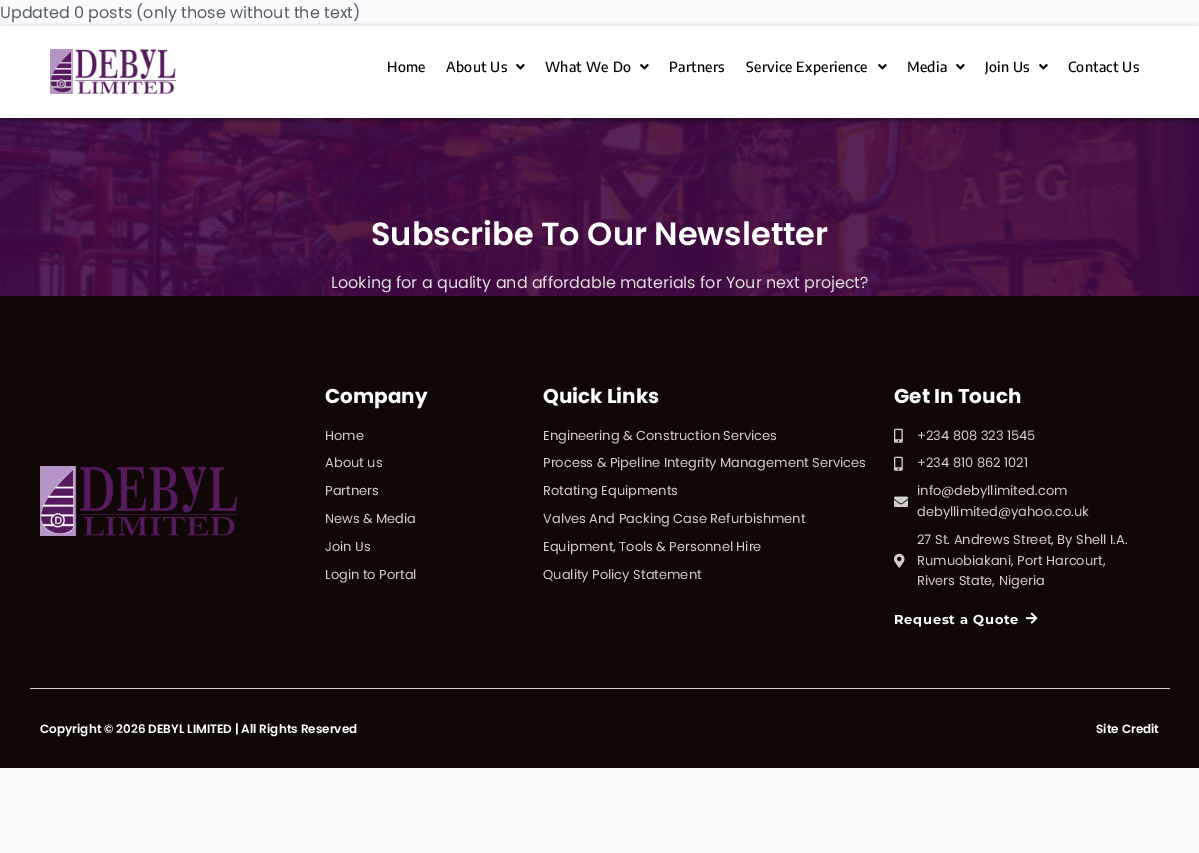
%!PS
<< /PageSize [1199 853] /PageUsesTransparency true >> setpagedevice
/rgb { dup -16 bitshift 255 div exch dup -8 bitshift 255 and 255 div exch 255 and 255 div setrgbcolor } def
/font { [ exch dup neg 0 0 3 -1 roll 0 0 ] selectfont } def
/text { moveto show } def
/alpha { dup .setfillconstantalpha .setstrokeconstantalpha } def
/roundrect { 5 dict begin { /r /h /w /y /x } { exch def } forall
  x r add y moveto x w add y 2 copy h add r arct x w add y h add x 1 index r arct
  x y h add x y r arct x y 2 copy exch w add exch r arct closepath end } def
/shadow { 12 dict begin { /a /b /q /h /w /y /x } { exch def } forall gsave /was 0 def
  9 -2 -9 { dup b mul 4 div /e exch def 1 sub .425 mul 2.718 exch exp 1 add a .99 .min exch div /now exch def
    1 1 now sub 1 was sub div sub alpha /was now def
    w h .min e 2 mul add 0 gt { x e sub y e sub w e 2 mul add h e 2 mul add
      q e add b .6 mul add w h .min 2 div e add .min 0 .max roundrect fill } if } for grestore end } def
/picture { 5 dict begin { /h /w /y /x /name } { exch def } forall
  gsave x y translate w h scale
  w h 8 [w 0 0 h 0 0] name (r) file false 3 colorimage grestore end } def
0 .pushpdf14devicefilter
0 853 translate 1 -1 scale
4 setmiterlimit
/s1 { /Poppins-Regular 16 font 16#585E68 rgb } def
/s2 { /Poppins-SemiBold 32 font 16#FFFFFF rgb } def
/s3 { /Poppins-Regular 16 font 16#DCDADA rgb } def
/s4 { /Poppins-Bold 20 font 16#FFFFFF rgb } def
/s5 { /Poppins-Regular 13 font 16#D3CECE rgb } def
/s6 { /Poppins-SemiBold 12 font 16#FFFFFF rgb } def
16#FBFBFD rgb
0 0 1199 853 rectfill
s1
(Updated 0 posts \(only those without the text\)) 0 18 text
(pic3.raw) 0 118 1199 178 picture
16#000000 rgb
0 28 1199 92 0 2.5 0.5 shadow
16#FFFFFF rgb
0 26 1199 92 rectfill
(pic1.raw) 50 49 126 45 picture
/EncodeSans-Medium 14 font
16#080202 rgb
387 72 moveto 0.25 0 (Home) ashow
446 72 moveto 0.25 0 (About Us) ashow
(pic2.raw) 516 64 9 6 picture
545 72 moveto 0.25 0 (What We Do) ashow
(pic2.raw) 640 64 9 6 picture
669 72 moveto 0.25 0 (Partners) ashow
746 72 moveto 0.25 0 (Service Experience) ashow
(pic2.raw) 878 64 9 6 picture
907 72 moveto 0.25 0 (Media) ashow
(pic2.raw) 956 64 9 6 picture
985 72 moveto 0.25 0 (Join Us) ashow
(pic2.raw) 1039 64 9 6 picture
1068 72 moveto 0.25 0 (Contact Us) ashow
s2
(Subscribe To Our Newsletter) 371 245 text
s3
(Looking for a quality and affordable materials for Your next project?) 331 288 text
16#110707 rgb
0 296 1199 472 rectfill
(pic4.raw) 40 466 198 70 picture
s4
(Company) 325 403 text
s5
(Home) 325 440 text
(About us) 325 467 text
(Partners) 325 495 text
(News & Media) 325 523 text
(Join Us) 325 551 text
(Login to Portal) 325 579 text
s4
(Quick Links) 543 403 text
s5
(Engineering & Construction Services) 543 440 text
(Process & Pipeline Integrity Management Services) 543 467 text
(Rotating Equipments) 543 495 text
(Valves And Packing Case Refurbishment) 543 523 text
(Equipment, Tools & Personnel Hire) 543 551 text
(Quality Policy Statement) 543 579 text
s4
(Get In Touch) 894 403 text
(pic5.raw) 894 428 9 15 picture
s5
(+234 808 323 1545) 917 440 text
(pic5.raw) 894 456 9 15 picture
(+234 810 862 1021) 917 467 text
(pic6.raw) 894 496 14 11 picture
(info@debyllimited.com) 917 495 text
(debyllimited@yahoo.co.uk) 917 516 text
(pic7.raw) 894 553 11 15 picture
(27 St. Andrews Street, By Shell I.A.) 917 544 text
(Rumuobiakani, Port Harcourt,) 917 565 text
(Rivers State, Nigeria) 917 585 text
/Montserrat-Bold 13 font
16#FFFFFF rgb
894 624 moveto 0.75 0 (Request a Quote) ashow
(pic8.raw) 1026 612 12 12 picture
16#D3CECE rgb
30 688 1140 1 rectfill
s6
(Copyright © 2026 DEBYL LIMITED | All Rights Reserved) 40 733 text
(Site Credit) 1096 733 text
.poppdf14devicefilter showpage
